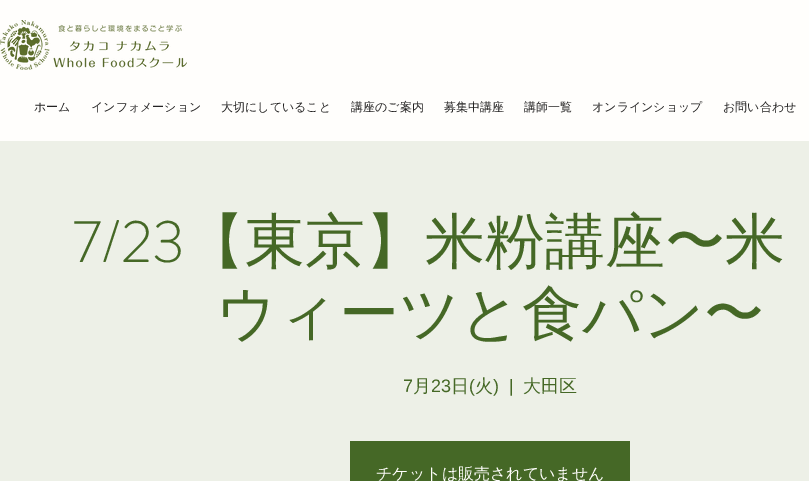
%!PS
<< /PageSize [809 481] >> setpagedevice
/rgb { dup -16 bitshift 255 div exch dup -8 bitshift 255 and 255 div exch 255 and 255 div setrgbcolor } def
/font { [ exch dup neg 0 0 3 -1 roll 0 0 ] selectfont } def
/text { moveto show } def
/picture { 5 dict begin { /h /w /y /x /name } { exch def } forall
  gsave x y translate w h scale
  w h 8 [w 0 0 h 0 0] name (r) file false 3 colorimage grestore end } def
0 481 translate 1 -1 scale
4 setmiterlimit
/s1 { /WenQuanYiZenHei-Medium 12 font 16#242323 rgb } def
/s2 { /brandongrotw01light-Light 60 font 16#456826 rgb } def
/s3 { /WenQuanYiZenHei-Medium 60 font 16#456826 rgb } def
/s4 { /LiberationSans-Regular 18 font 16#456826 rgb } def
/s5 { /WenQuanYiZenHei-Medium 18 font 16#456826 rgb } def
/s6 { /WenQuanYiZenHei-Medium 16 font 16#FFFEFC rgb } def
16#FFFEFC rgb
0 0 809 481 rectfill
(pic1.raw) 0 20 187 50 picture
s1
(ホーム) 34 111 text
(インフォメーション) 91 111 text
(大切にしていること) 221 111 text
(講座のご案内) 351 111 text
(募集中講座) 444 111 text
(講師一覧) 524 111 text
(オンラインショップ) 592 111 text
(お問い合わせ) 723 111 text
16#EDF0E7 rgb
0 141 809 340 rectfill
s2
(7/23) 73 262 text
s3
(【東京】米粉講座〜米) 185 262 text
(ウィーツと食パン〜) 216 334 text
s4
(7) 403 392 text
s5
(月) 413 392 text
s4
(23) 431 392 text
s5
(日) 451 392 text
s4
(\() 469 392 text
s5
(火) 475 392 text
s4
(\)) 493 392 text
(|) 509 392 text
s5
(大田区) 523 392 text
350 441 280 40 rectfill
s6
(チケットは販売されていません) 376 479 text
showpage
